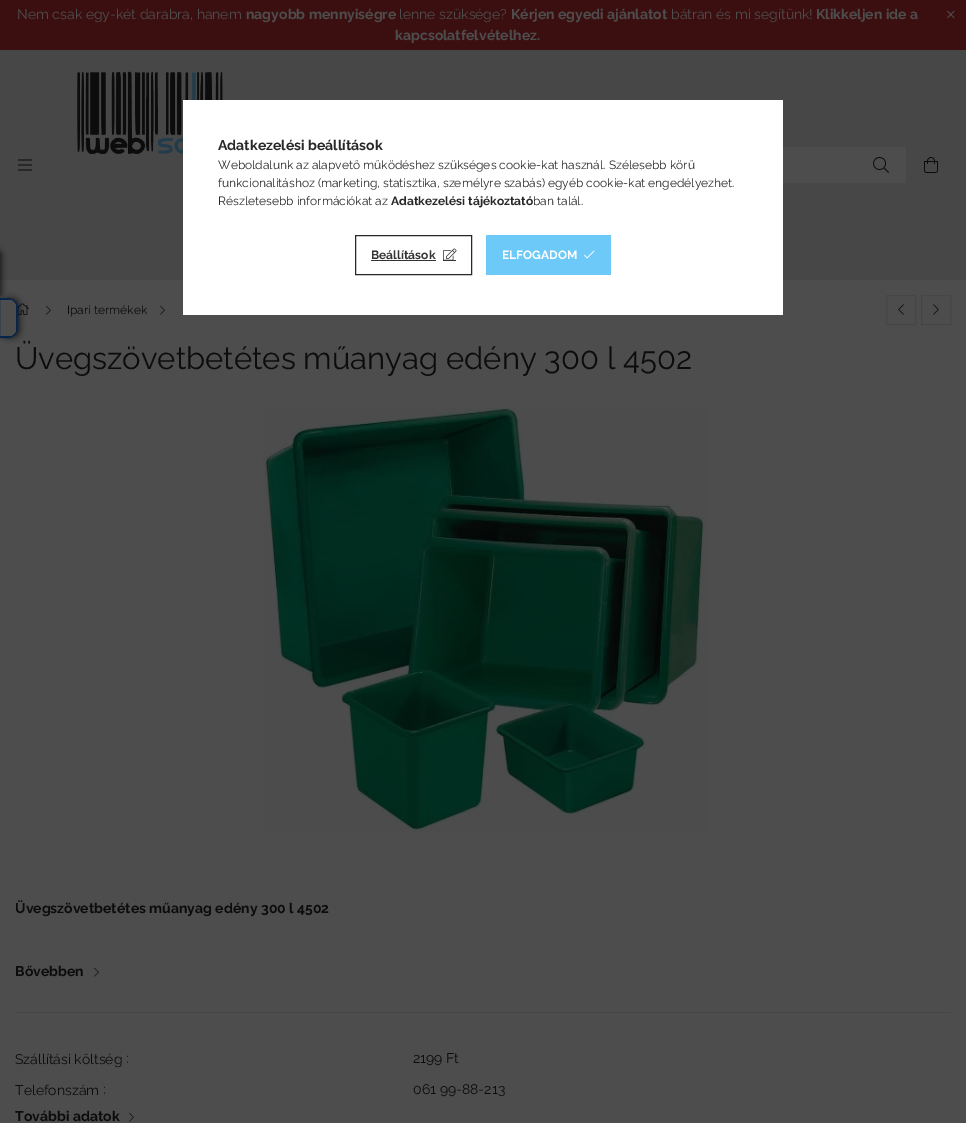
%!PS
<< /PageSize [966 1123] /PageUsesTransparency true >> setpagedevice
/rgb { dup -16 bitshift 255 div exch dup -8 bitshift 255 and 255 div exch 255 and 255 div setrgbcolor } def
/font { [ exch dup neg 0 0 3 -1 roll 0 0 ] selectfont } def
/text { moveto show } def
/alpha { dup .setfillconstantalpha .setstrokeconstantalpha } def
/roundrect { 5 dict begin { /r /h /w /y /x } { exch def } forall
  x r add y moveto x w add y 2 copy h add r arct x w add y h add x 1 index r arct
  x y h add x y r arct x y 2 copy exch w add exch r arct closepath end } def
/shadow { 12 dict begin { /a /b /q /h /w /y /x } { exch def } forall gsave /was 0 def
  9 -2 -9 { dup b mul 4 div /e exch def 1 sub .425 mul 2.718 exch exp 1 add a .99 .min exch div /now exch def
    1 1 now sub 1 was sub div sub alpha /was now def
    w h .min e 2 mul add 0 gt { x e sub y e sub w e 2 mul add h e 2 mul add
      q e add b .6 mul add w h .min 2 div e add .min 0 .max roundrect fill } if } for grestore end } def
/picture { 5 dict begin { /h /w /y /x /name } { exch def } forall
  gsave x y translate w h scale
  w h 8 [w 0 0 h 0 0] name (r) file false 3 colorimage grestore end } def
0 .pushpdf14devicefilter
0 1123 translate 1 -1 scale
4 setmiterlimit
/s1 { /Raleway-Regular 14 font 16#4D4D4D rgb } def
/s2 { /Raleway-Bold 14 font 16#4D4D4D rgb } def
/s3 { /Raleway-Regular 12 font 16#0C0C0C rgb } def
/s4 { /Raleway-Regular 31 font 16#0C0C0C rgb } def
/s5 { /Raleway-Bold 14 font 16#0C0C0C rgb } def
/s6 { /Raleway-Regular 14 font 16#0C0C0C rgb } def
/s7 { /Raleway-Bold 14 font 16#282828 rgb } def
/s8 { /Raleway-Regular 12 font 16#282828 rgb } def
/s9 { /Raleway-Bold 12 font 16#282828 rgb } def
/s10 { /Raleway-Bold 12 font 16#333333 rgb } def
/s11 { /Raleway-Bold 12 font 16#FFFFFF rgb } def
16#4D4D4D rgb
0 0 966 1123 rectfill
16#3B0F10 rgb
0 0 966 50 rectfill
s1
(Nem csak egy-két darabra, hanem) 17 19 text
s2
(nagyobb mennyiségre) 246 19 text
s1
(lenne szüksége?) 399 19 text
s2
(Kérjen egyedi ajánlatot) 511 19 text
s1
(bátran és mi segítünk!) 671 19 text
s2
(Klikkeljen ide a) 816 19 text
(kapcsolatfelvételhez.) 395 40 text
(pic1.raw) 947 10 8 9 picture
16#474747 rgb
0 50 966 230 rectfill
(pic2.raw) 77 71 146 83 picture
(pic3.raw) 18 159 14 12 picture
16#4D4D4D rgb
783 147 123 36 rectfill
(pic4.raw) 873 157 16 16 picture
(pic5.raw) 924 157 14 16 picture
(pic6.raw) 17 303 12 12 picture
(pic7.raw) 46 305 5 10 picture
s3
(Ipari termékek) 67 314 text
(pic7.raw) 160 305 5 10 picture
16#464646 rgb
886.5 295.5 29 29 rectstroke
(pic8.raw) 898 304 6 11 picture
921.5 295.5 29 29 rectstroke
(pic9.raw) 933 304 6 11 picture
s4
(Üvegszövetbetétes műanyag edény 300 l 4502) 15 369 text
(pic10.raw) 263 407 444 425 picture
s5
(Üvegszövetbetétes műanyag edény 300 l 4502) 15 913 text
(Bővebben) 15 976 text
(pic7.raw) 94 967 5 10 picture
16#464646 rgb
15 1012 936 1 rectfill
s6
(Szállítási költség) 15 1064 text
(:) 126 1063 text
(2199 Ft) 413 1063 text
(Telefonszám) 15 1095 text
(:) 103 1094 text
(061 99-88-213) 413 1094 text
s5
(További adatok) 15 1121 text
(pic7.raw) 129 1112 5 10 picture
16#FFFFFF rgb
183 100 600 215 rectfill
s7
(Adatkezelési beállítások) 218 150 text
s8
(Weboldalunk az alapvető működéshez szükséges cookie-kat használ. Szélesebb körű) 218 169 text
(funkcionalitáshoz \(marketing, statisztika, személyre szabás\) egyéb cookie-kat engedélyezhet.) 218 187 text
(Részletesebb információkat az) 218 205 text
s9
(Adatkezelési tájékoztató) 391 205 text
s8
(ban talál.) 533 205 text
355.5 235.5 116 39 rectstroke
s10
(Beállítások) 371 259 text
371 260 65 1 rectfill
(pic11.raw) 443 248 14 12 picture
443 260 13 1 rectfill
16#6DC9F7 rgb
486 235 125 40 rectfill
s11
(ELFOGADOM) 502 259 text
(pic12.raw) 584 250 11 9 picture
16#000000 rgb
-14 250 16 48 5 3 0.6 shadow
1 298 19 40 10 3 0.6 shadow
16#4D4D4D rgb
-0.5 298.5 moveto 8 298.5 lineto 13 298.5 17.5 303 17.5 308 curveto 17.5 328 lineto 17.5 333 13 337.5 8 337.5 curveto -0.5 337.5 lineto closepath gsave fill grestore
16#072449 rgb
stroke
0 299 13 1 rectfill
16 303 1 30 rectfill
0 336 13 1 rectfill
.poppdf14devicefilter showpage
